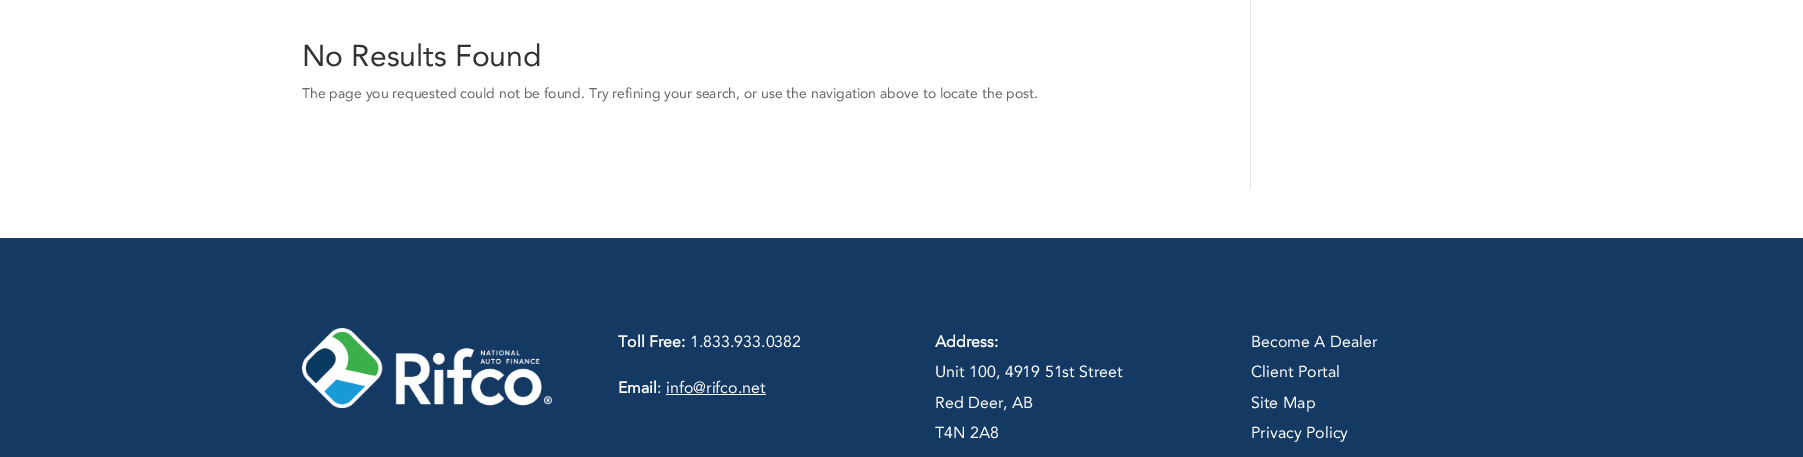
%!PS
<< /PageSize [1803 457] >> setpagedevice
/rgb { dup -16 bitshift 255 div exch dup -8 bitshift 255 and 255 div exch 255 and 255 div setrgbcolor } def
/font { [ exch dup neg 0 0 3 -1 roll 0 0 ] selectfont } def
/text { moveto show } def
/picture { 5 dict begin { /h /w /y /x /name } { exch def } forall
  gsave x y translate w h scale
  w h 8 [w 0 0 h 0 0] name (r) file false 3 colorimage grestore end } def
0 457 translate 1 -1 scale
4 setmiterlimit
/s1 { /Avenir-Regular 30 font 16#333333 rgb } def
/s2 { /Avenir-Regular 14 font 16#666666 rgb } def
/s3 { /Avenir-Bold 16 font 16#FFFFFF rgb } def
/s4 { /Avenir-Regular 16 font 16#FFFFFF rgb } def
16#FFFFFF rgb
0 0 1803 457 rectfill
s1
(No Results Found) 302 66 text
s2
(The page you requested could not be found. Try refining your search, or use the navigation above to locate the post.) 302 98 text
16#E2E2E2 rgb
1250 0 1 190 rectfill
16#143963 rgb
0 238 1803 219 rectfill
(pic1.raw) 302 328 250 80 picture
s3
(Toll Free:) 618 347 text
s4
(1.833.933.0382) 690 347 text
s3
(Email) 618 393 text
s4
(: info@rifco.net) 657 393 text
666 394 100 1 rectfill
s3
(Address:) 935 347 text
s4
(Unit 100, 4919 51st Street) 935 377 text
(Red Deer, AB) 935 408 text
(T4N 2A8) 935 438 text
(Become A Dealer) 1251 347 text
(Client Portal) 1251 377 text
(Site Map) 1251 408 text
(Privacy Policy) 1251 438 text
showpage
